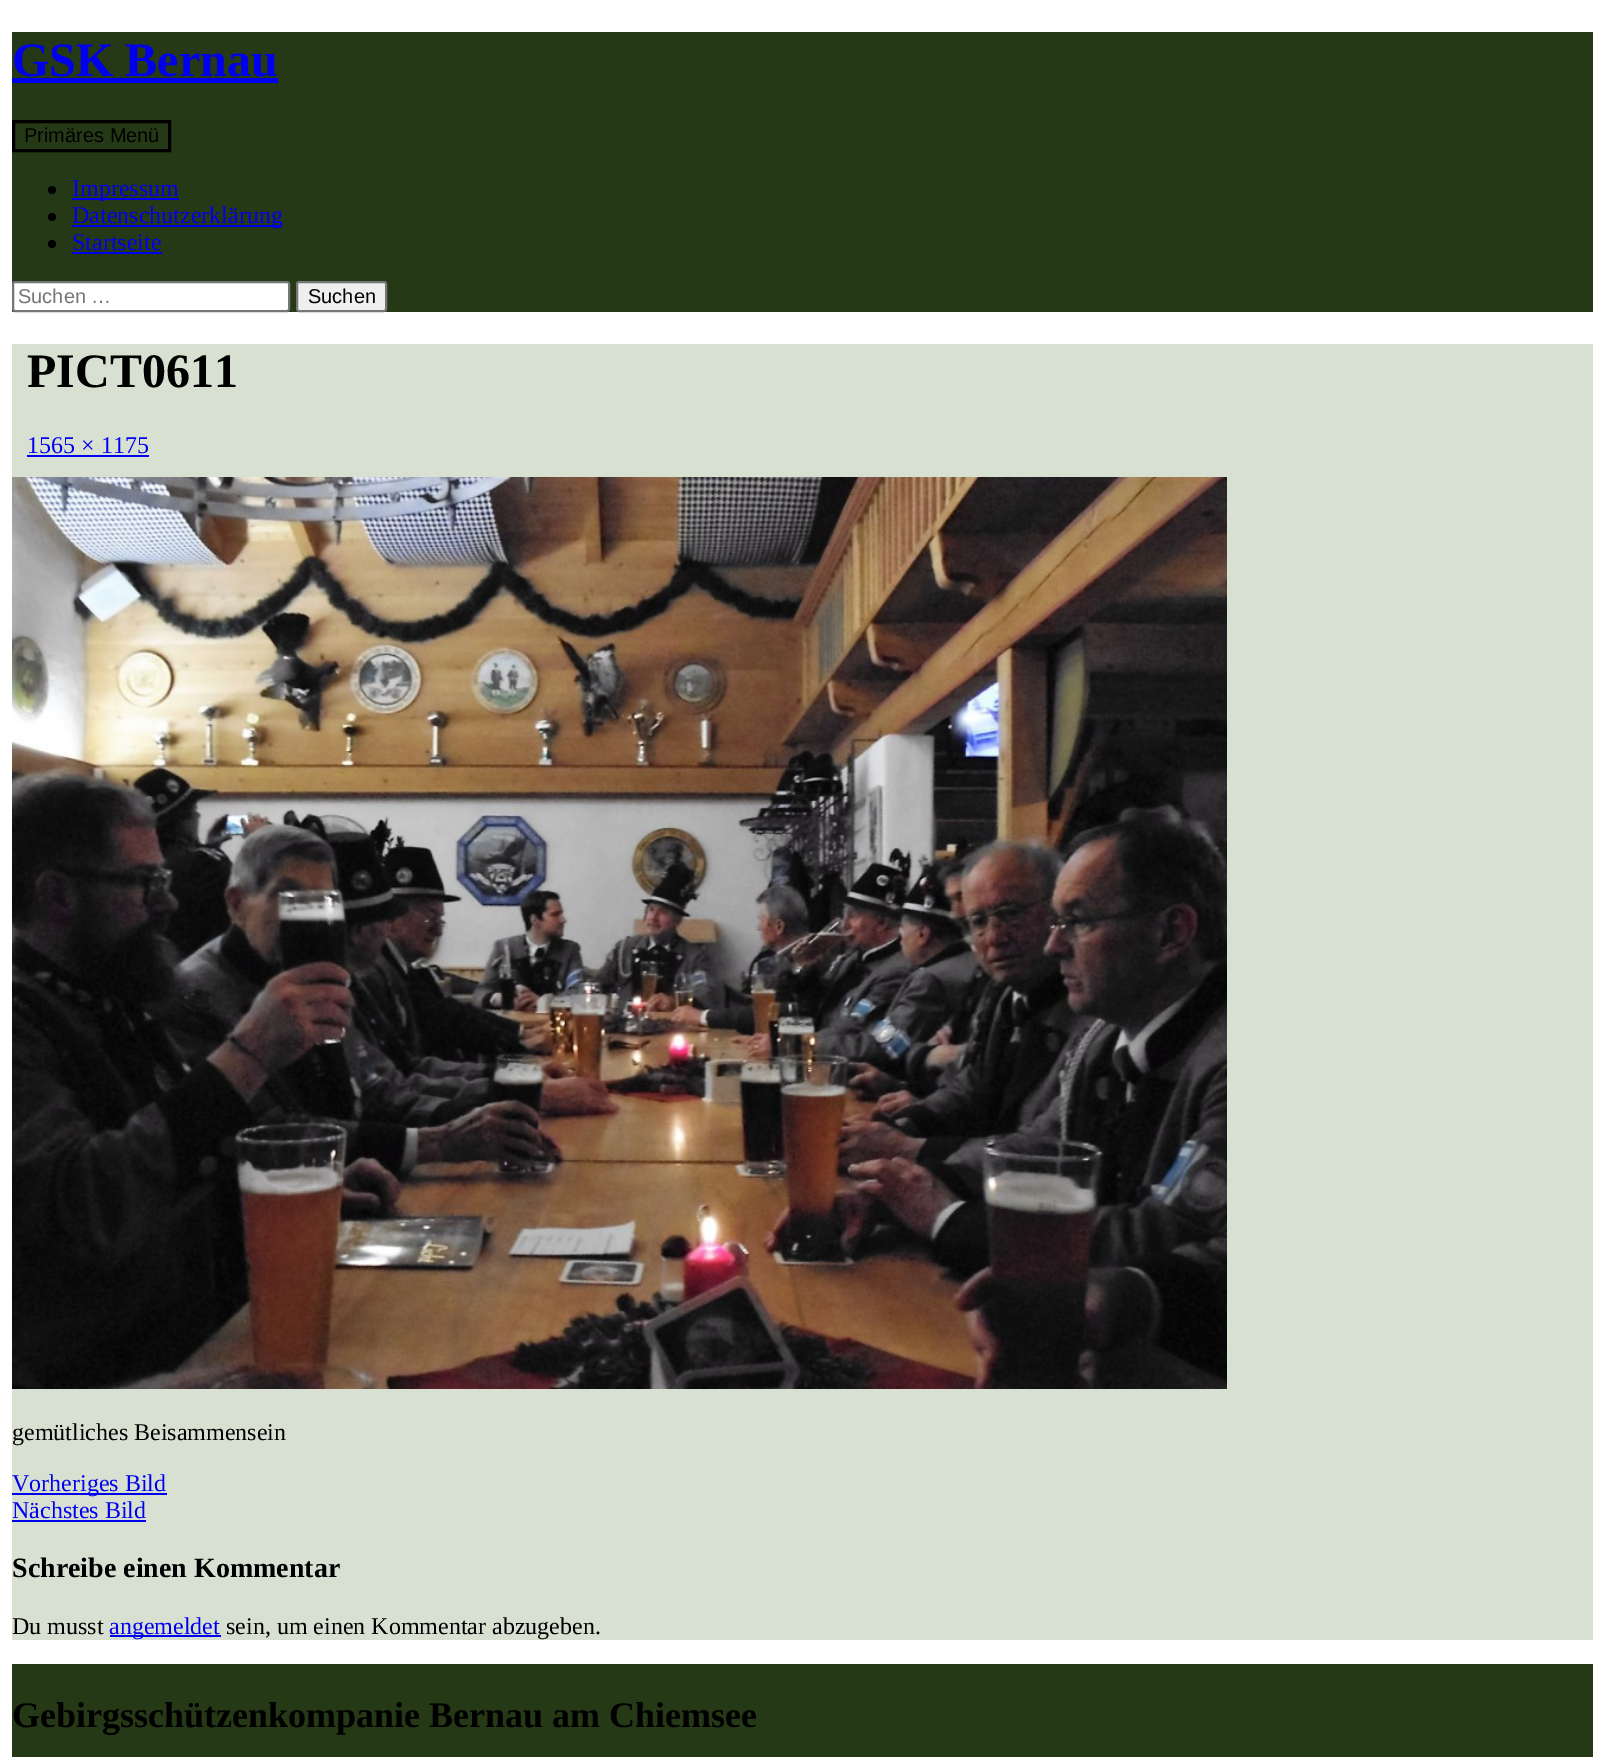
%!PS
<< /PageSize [1604 1757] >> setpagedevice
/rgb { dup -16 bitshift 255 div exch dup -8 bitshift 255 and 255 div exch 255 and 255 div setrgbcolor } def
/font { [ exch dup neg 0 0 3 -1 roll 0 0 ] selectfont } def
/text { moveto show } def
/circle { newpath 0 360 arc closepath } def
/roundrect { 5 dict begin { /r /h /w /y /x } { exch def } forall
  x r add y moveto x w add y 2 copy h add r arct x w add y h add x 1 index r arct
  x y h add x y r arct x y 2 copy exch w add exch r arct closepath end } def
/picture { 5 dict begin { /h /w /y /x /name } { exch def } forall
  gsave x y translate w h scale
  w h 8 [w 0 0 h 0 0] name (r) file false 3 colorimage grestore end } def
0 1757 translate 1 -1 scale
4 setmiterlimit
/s1 { /LiberationSerif-Bold 48 font 16#0000EE rgb } def
/s2 { /LiberationSans-Regular 20 font 16#000000 rgb } def
/s3 { /LiberationSerif-Regular 24 font 16#0000EE rgb } def
/s4 { /LiberationSans-Regular 20 font 16#757575 rgb } def
/s5 { /LiberationSerif-Bold 48 font 16#000000 rgb } def
/s6 { /LiberationSerif-Regular 24 font 16#000000 rgb } def
/s7 { /LiberationSerif-Bold 28 font 16#000000 rgb } def
/s8 { /LiberationSerif-Bold 36 font 16#000000 rgb } def
16#FFFFFF rgb
0 0 1604 1757 rectfill
16#253916 rgb
12 32 1581 280 rectfill
s1
(GSK Bernau) 12 76 text
12 78 266 5 rectfill
16#000000 rgb
3 setlinewidth
13.5 121.5 156 29 rectstroke
s2
(Primäres Menü) 24 142 text
52 190 4 circle fill
16#0000EE rgb
72 198 107 2 rectfill
s3
(Impressum) 72 196 text
16#000000 rgb
52 217 4 circle fill
16#0000EE rgb
72 225 210 2 rectfill
(Datenschutzerklärung) 72 223 text
16#000000 rgb
52 244 4 circle fill
s3
(Startseite) 72 250 text
72 252 90 2 rectfill
16#FFFFFF rgb
13 282 276 29 2 roundrect gsave fill grestore
16#767676 rgb
2 setlinewidth
stroke
s4
(Suchen …) 18 303 text
16#EFEFEF rgb
297 282 89 29 2 roundrect gsave fill grestore
16#767676 rgb
stroke
s2
(Suchen) 308 303 text
16#D8E0D1 rgb
12 344 1581 1296 rectfill
s5
(PICT0611) 27 387 text
s3
(1565 × 1175) 27 453 text
27 455 122 2 rectfill
(pic1.raw) 12 477 1215 912 picture
s6
(gemütliches Beisammensein) 12 1440 text
16#0000EE rgb
12 1493 155 2 rectfill
(Vorheriges Bild) 12 1491 text
(Nächstes Bild) 12 1518 text
12 1520 134 2 rectfill
s7
(Schreibe einen Kommentar) 12 1577 text
s6
(Du musst) 12 1634 text
16#0000EE rgb
110 1635 111 2 rectfill
(angemeldet) 109 1634 text
s6
(sein, um einen Kommentar abzugeben.) 226 1634 text
16#253916 rgb
12 1664 1581 93 rectfill
s8
(Gebirgsschützenkompanie Bernau am Chiemsee) 12 1727 text
showpage
